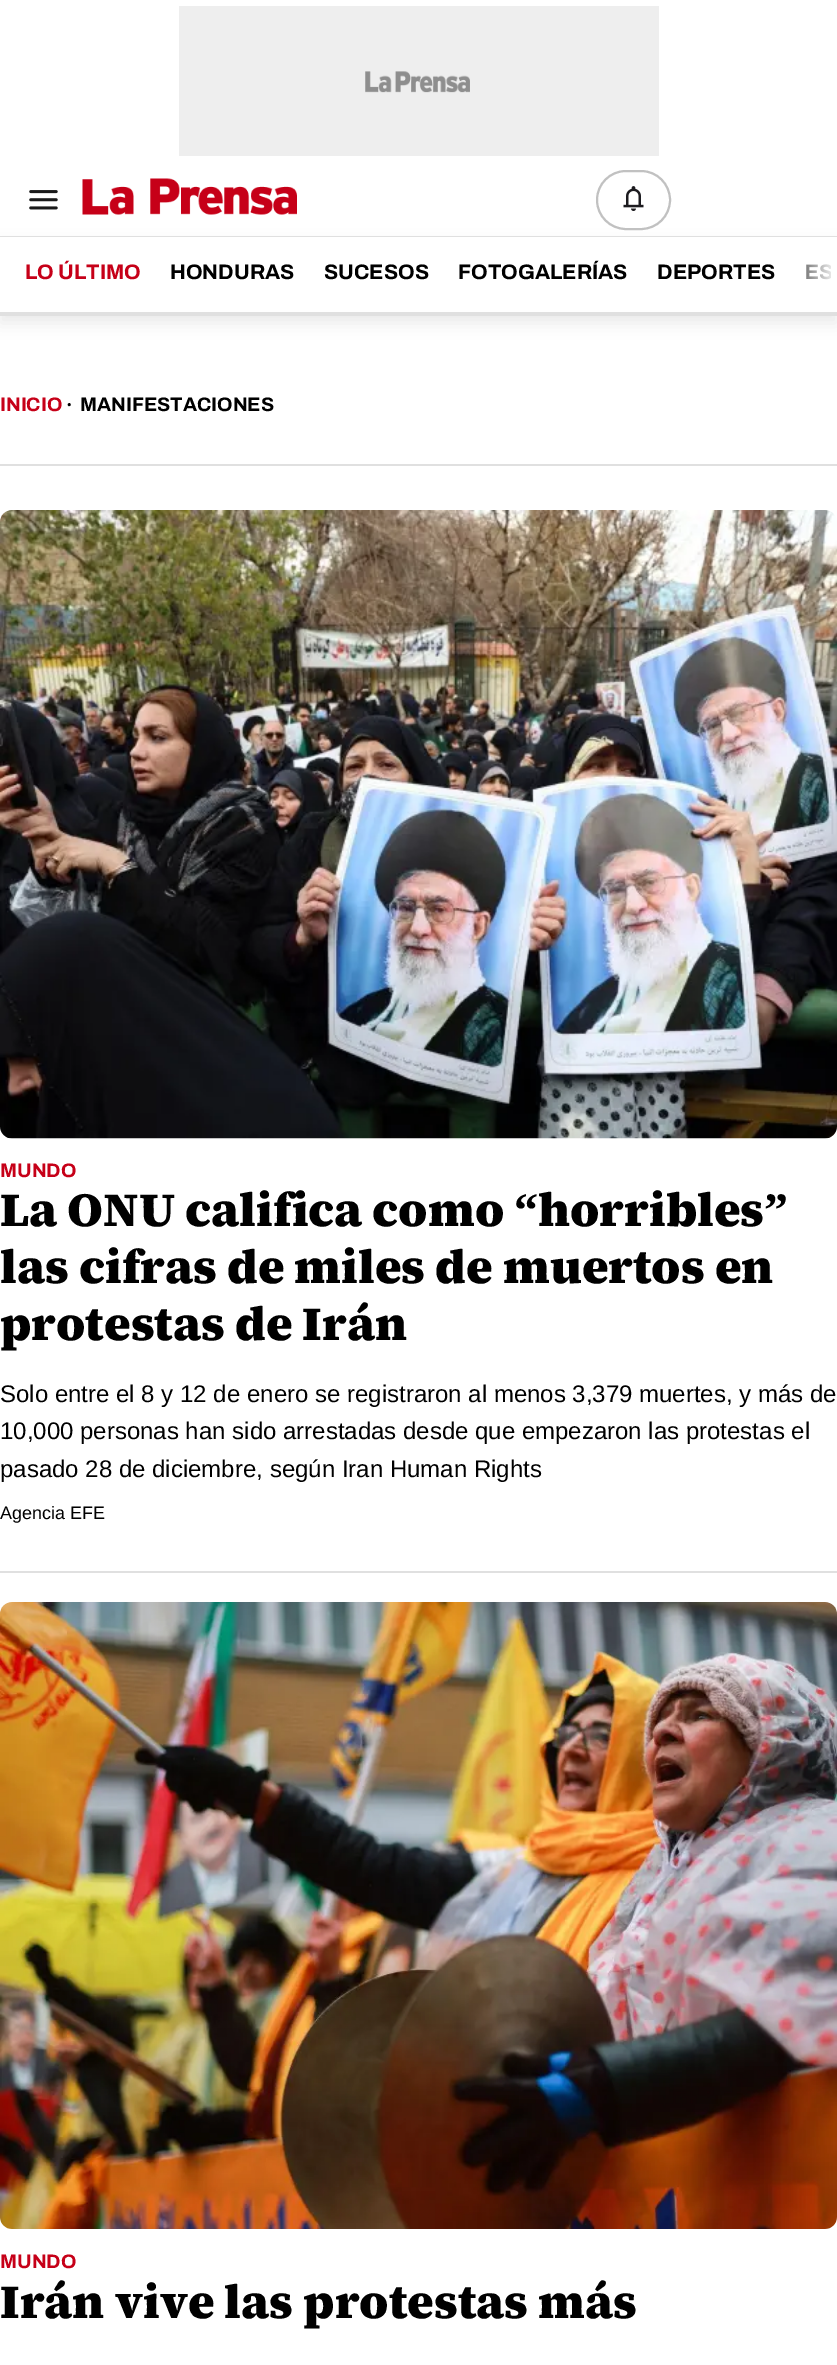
%!PS
<< /PageSize [837 2365] /PageUsesTransparency true >> setpagedevice
/rgb { dup -16 bitshift 255 div exch dup -8 bitshift 255 and 255 div exch 255 and 255 div setrgbcolor } def
/font { [ exch dup neg 0 0 3 -1 roll 0 0 ] selectfont } def
/text { moveto show } def
/alpha { dup .setfillconstantalpha .setstrokeconstantalpha } def
/roundrect { 5 dict begin { /r /h /w /y /x } { exch def } forall
  x r add y moveto x w add y 2 copy h add r arct x w add y h add x 1 index r arct
  x y h add x y r arct x y 2 copy exch w add exch r arct closepath end } def
/shadow { 12 dict begin { /a /b /q /h /w /y /x } { exch def } forall gsave /was 0 def
  9 -2 -9 { dup b mul 4 div /e exch def 1 sub .425 mul 2.718 exch exp 1 add a .99 .min exch div /now exch def
    1 1 now sub 1 was sub div sub alpha /was now def
    w h .min e 2 mul add 0 gt { x e sub y e sub w e 2 mul add h e 2 mul add
      q e add b .6 mul add w h .min 2 div e add .min 0 .max roundrect fill } if } for grestore end } def
/picture { 5 dict begin { /h /w /y /x /name } { exch def } forall
  gsave x y translate w h scale
  w h 8 [w 0 0 h 0 0] name (r) file false 3 colorimage grestore end } def
0 .pushpdf14devicefilter
0 2365 translate 1 -1 scale
4 setmiterlimit
/s1 { /Archivo-Bold 21 font 16#C60018 rgb } def
/s2 { /Archivo-Bold 21 font 16#000000 rgb } def
/s3 { /Archivo-Bold 19.5 font 16#C60018 rgb } def
/s4 { /LiberationSerif-Bold 19.5 font 16#000000 rgb } def
/s5 { /Archivo-Bold 19.5 font 16#000000 rgb } def
/s6 { /SourceSerif4-Black 48 font 16#000000 rgb } def
/s7 { /LiberationSerif-Bold 48 font 16#000000 rgb } def
/s8 { /LiberationSans-Regular 24 font 16#000000 rgb } def
/s9 { /LiberationSans-Regular 18 font 16#000000 rgb } def
16#FFFFFF rgb
0 0 837 2365 rectfill
16#EEEEEE rgb
179 6 480 150 rectfill
(pic1.raw) 365 71 105 22 picture
16#000000 rgb
0 245 837 78 0 7.5 0.08 shadow
16#E0E0E0 rgb
0 236 837 1 rectfill
(pic2.raw) 29 190 29 20 picture
(pic3.raw) 82 178 215 37 picture
(pic4.raw) 623 186 21 25 picture
16#C1C1C1 rgb
2 setlinewidth
597 171 73 58 29 roundrect stroke
16#E0E0E0 rgb
0 312 837 4 rectfill
16#FFFFFF rgb
0 237 837 75 rectfill
s1
(LO ÚLTIMO) 25 279 text
s2
(HONDURAS) 170 279 text
(SUCESOS) 324 279 text
(FOTOGALERÍAS) 458 279 text
(DEPORTES) 657 279 text
(E) 805 279 text
(pic5.raw) 806 264 25 16 picture
16#E0E0E0 rgb
0 464 837 2 rectfill
s3
(INICIO) 0 411 text
s4
(·) 66 411 text
s5
(MANIFESTACIONES) 80 411 text
16#E0E0E0 rgb
0 1571 837 2 rectfill
(pic6.raw) 0 510 837 629 picture
s3
(MUNDO) 0 1177 text
s6
(La ONU califica como) 0 1226 text
s7
(“) 514 1226 text
s6
(horribles) 538 1226 text
s7
(”) 764 1226 text
s6
(las cifras de miles de muertos en) 0 1283 text
(protestas de Irán) 0 1340 text
s8
(Solo entre el 8 y 12 de enero se registraron al menos 3,379 muertes, y más de) 0 1402 text
(10,000 personas han sido arrestadas desde que empezaron las protestas el) 0 1439 text
(pasado 28 de diciembre, según Iran Human Rights) 0 1477 text
s9
(Agencia EFE) 0 1519 text
(pic7.raw) 0 1602 837 627 picture
s3
(MUNDO) 0 2268 text
s6
(Irán vive las protestas más) 0 2318 text
.poppdf14devicefilter showpage
